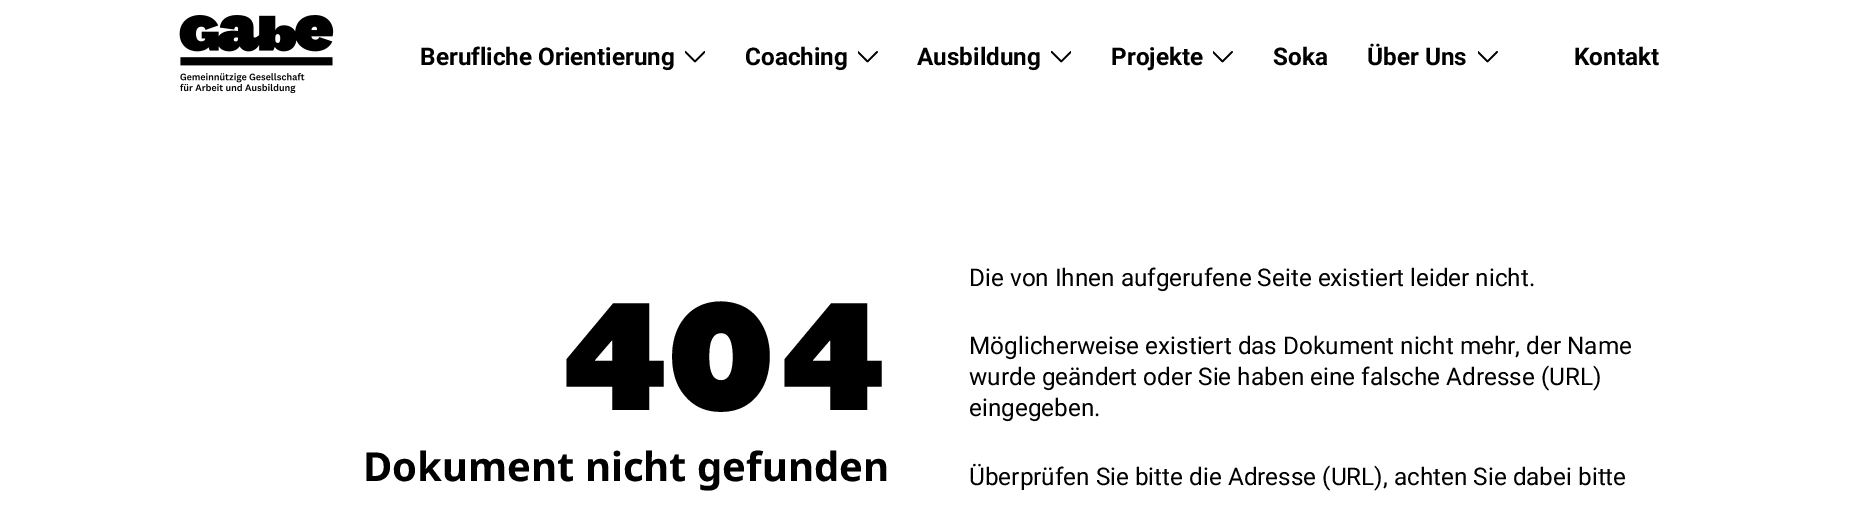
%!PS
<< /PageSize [1857 506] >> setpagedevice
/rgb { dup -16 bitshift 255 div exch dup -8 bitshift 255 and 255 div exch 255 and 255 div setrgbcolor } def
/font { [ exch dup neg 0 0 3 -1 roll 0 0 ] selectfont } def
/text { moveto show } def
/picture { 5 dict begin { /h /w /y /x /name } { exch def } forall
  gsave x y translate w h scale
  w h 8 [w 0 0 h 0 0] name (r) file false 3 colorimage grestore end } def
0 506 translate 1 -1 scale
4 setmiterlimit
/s1 { /Roboto-Bold 24.3 font 16#000000 rgb } def
/s2 { /NotoSans-Bold 40 font 16#000000 rgb } def
/s3 { /Roboto-Regular 24.3 font 16#000000 rgb } def
16#FFFFFF rgb
0 0 1857 506 rectfill
(pic1.raw) 179 15 155 79 picture
s1
(Berufliche Orientierung) 420 65 text
(pic2.raw) 685 50 20 13 picture
(Coaching) 745 65 text
(pic3.raw) 858 51 20 12 picture
(Ausbildung) 917 65 text
(pic4.raw) 1051 50 20 13 picture
(Projekte) 1111 65 text
(pic3.raw) 1213 51 20 12 picture
(Soka) 1273 65 text
(Über Uns) 1367 65 text
(pic3.raw) 1478 51 20 12 picture
(Kontakt) 1574 65 text
/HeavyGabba-Black 160 font
564 410 moveto 10 0 (404) ashow
s2
(Dokument nicht gefunden) 363 481 text
s3
(Die von Ihnen aufgerufene Seite existiert leider nicht.) 969 286 text
(Möglicherweise existiert das Dokument nicht mehr, der Name) 969 354 text
(wurde geändert oder Sie haben eine falsche Adresse \(URL\)) 969 385 text
(eingegeben.) 969 416 text
(Überprüfen Sie bitte die Adresse \(URL\), achten Sie dabei bitte) 969 485 text
showpage
